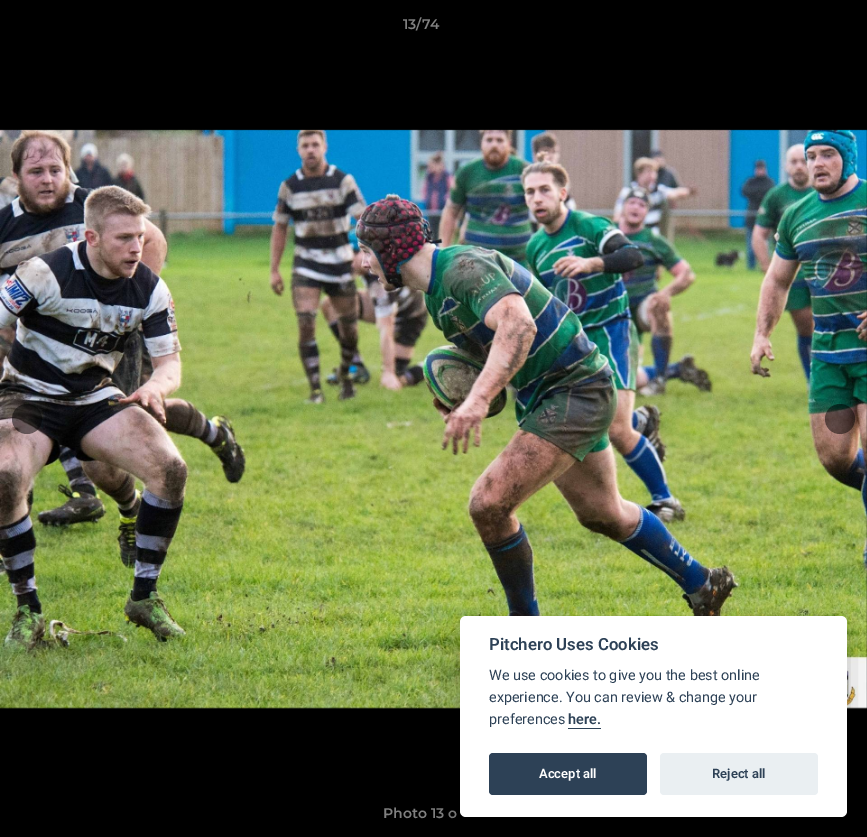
%!PS
<< /PageSize [867 837] /PageUsesTransparency true >> setpagedevice
/rgb { dup -16 bitshift 255 div exch dup -8 bitshift 255 and 255 div exch 255 and 255 div setrgbcolor } def
/font { [ exch dup neg 0 0 3 -1 roll 0 0 ] selectfont } def
/text { moveto show } def
/alpha { dup .setfillconstantalpha .setstrokeconstantalpha } def
/circle { newpath 0 360 arc closepath } def
/roundrect { 5 dict begin { /r /h /w /y /x } { exch def } forall
  x r add y moveto x w add y 2 copy h add r arct x w add y h add x 1 index r arct
  x y h add x y r arct x y 2 copy exch w add exch r arct closepath end } def
/shadow { 12 dict begin { /a /b /q /h /w /y /x } { exch def } forall gsave /was 0 def
  9 -2 -9 { dup b mul 4 div /e exch def 1 sub .425 mul 2.718 exch exp 1 add a .99 .min exch div /now exch def
    1 1 now sub 1 was sub div sub alpha /was now def
    w h .min e 2 mul add 0 gt { x e sub y e sub w e 2 mul add h e 2 mul add
      q e add b .6 mul add w h .min 2 div e add .min 0 .max roundrect fill } if } for grestore end } def
/picture { 5 dict begin { /h /w /y /x /name } { exch def } forall
  gsave x y translate w h scale
  w h 8 [w 0 0 h 0 0] name (r) file false 3 colorimage grestore end } def
0 .pushpdf14devicefilter
0 837 translate 1 -1 scale
4 setmiterlimit
/s1 { /Montserrat-SemiBold 14 font 16#808080 rgb } def
/s2 { /Roboto-SemiBold 16.75 font 16#2D4156 rgb } def
/s3 { /Roboto-Regular 14.4 font 16#2D4156 rgb } def
/s4 { /Roboto-SemiBold 14.4 font 16#2D4156 rgb } def
/s5 { /Roboto-SemiBold 13 font 16#FFFFFF rgb } def
/s6 { /Roboto-SemiBold 13 font 16#2D4156 rgb } def
16#000000 rgb
0 0 867 837 rectfill
s1
(13/74) 403 29 text
(pic1.raw) 0 129 867 580 picture
0.5 alpha
16#000000 rgb
27 419 15 circle fill
840 419 15 circle fill
1 alpha
s1
(Photo 13 o) 383 818 text
16#020203 rgb
460 626 387 201 6 15 0.28 shadow
16#FFFFFF rgb
460 616 387 201 6 roundrect fill
s2
(Pitchero Uses Cookies) 489 650 text
s3
(We use cookies to give you the best online) 489 680 text
(experience. You can review & change your) 489 702 text
(preferences) 489 724 text
s4
(here.) 568 724 text
568 728 33 1 rectfill
489 753 158 42 4 roundrect fill
s5
(Accept all) 539 778 text
16#EAEFF2 rgb
660 753 158 42 4 roundrect fill
s6
(Reject all) 712 778 text
.poppdf14devicefilter showpage
